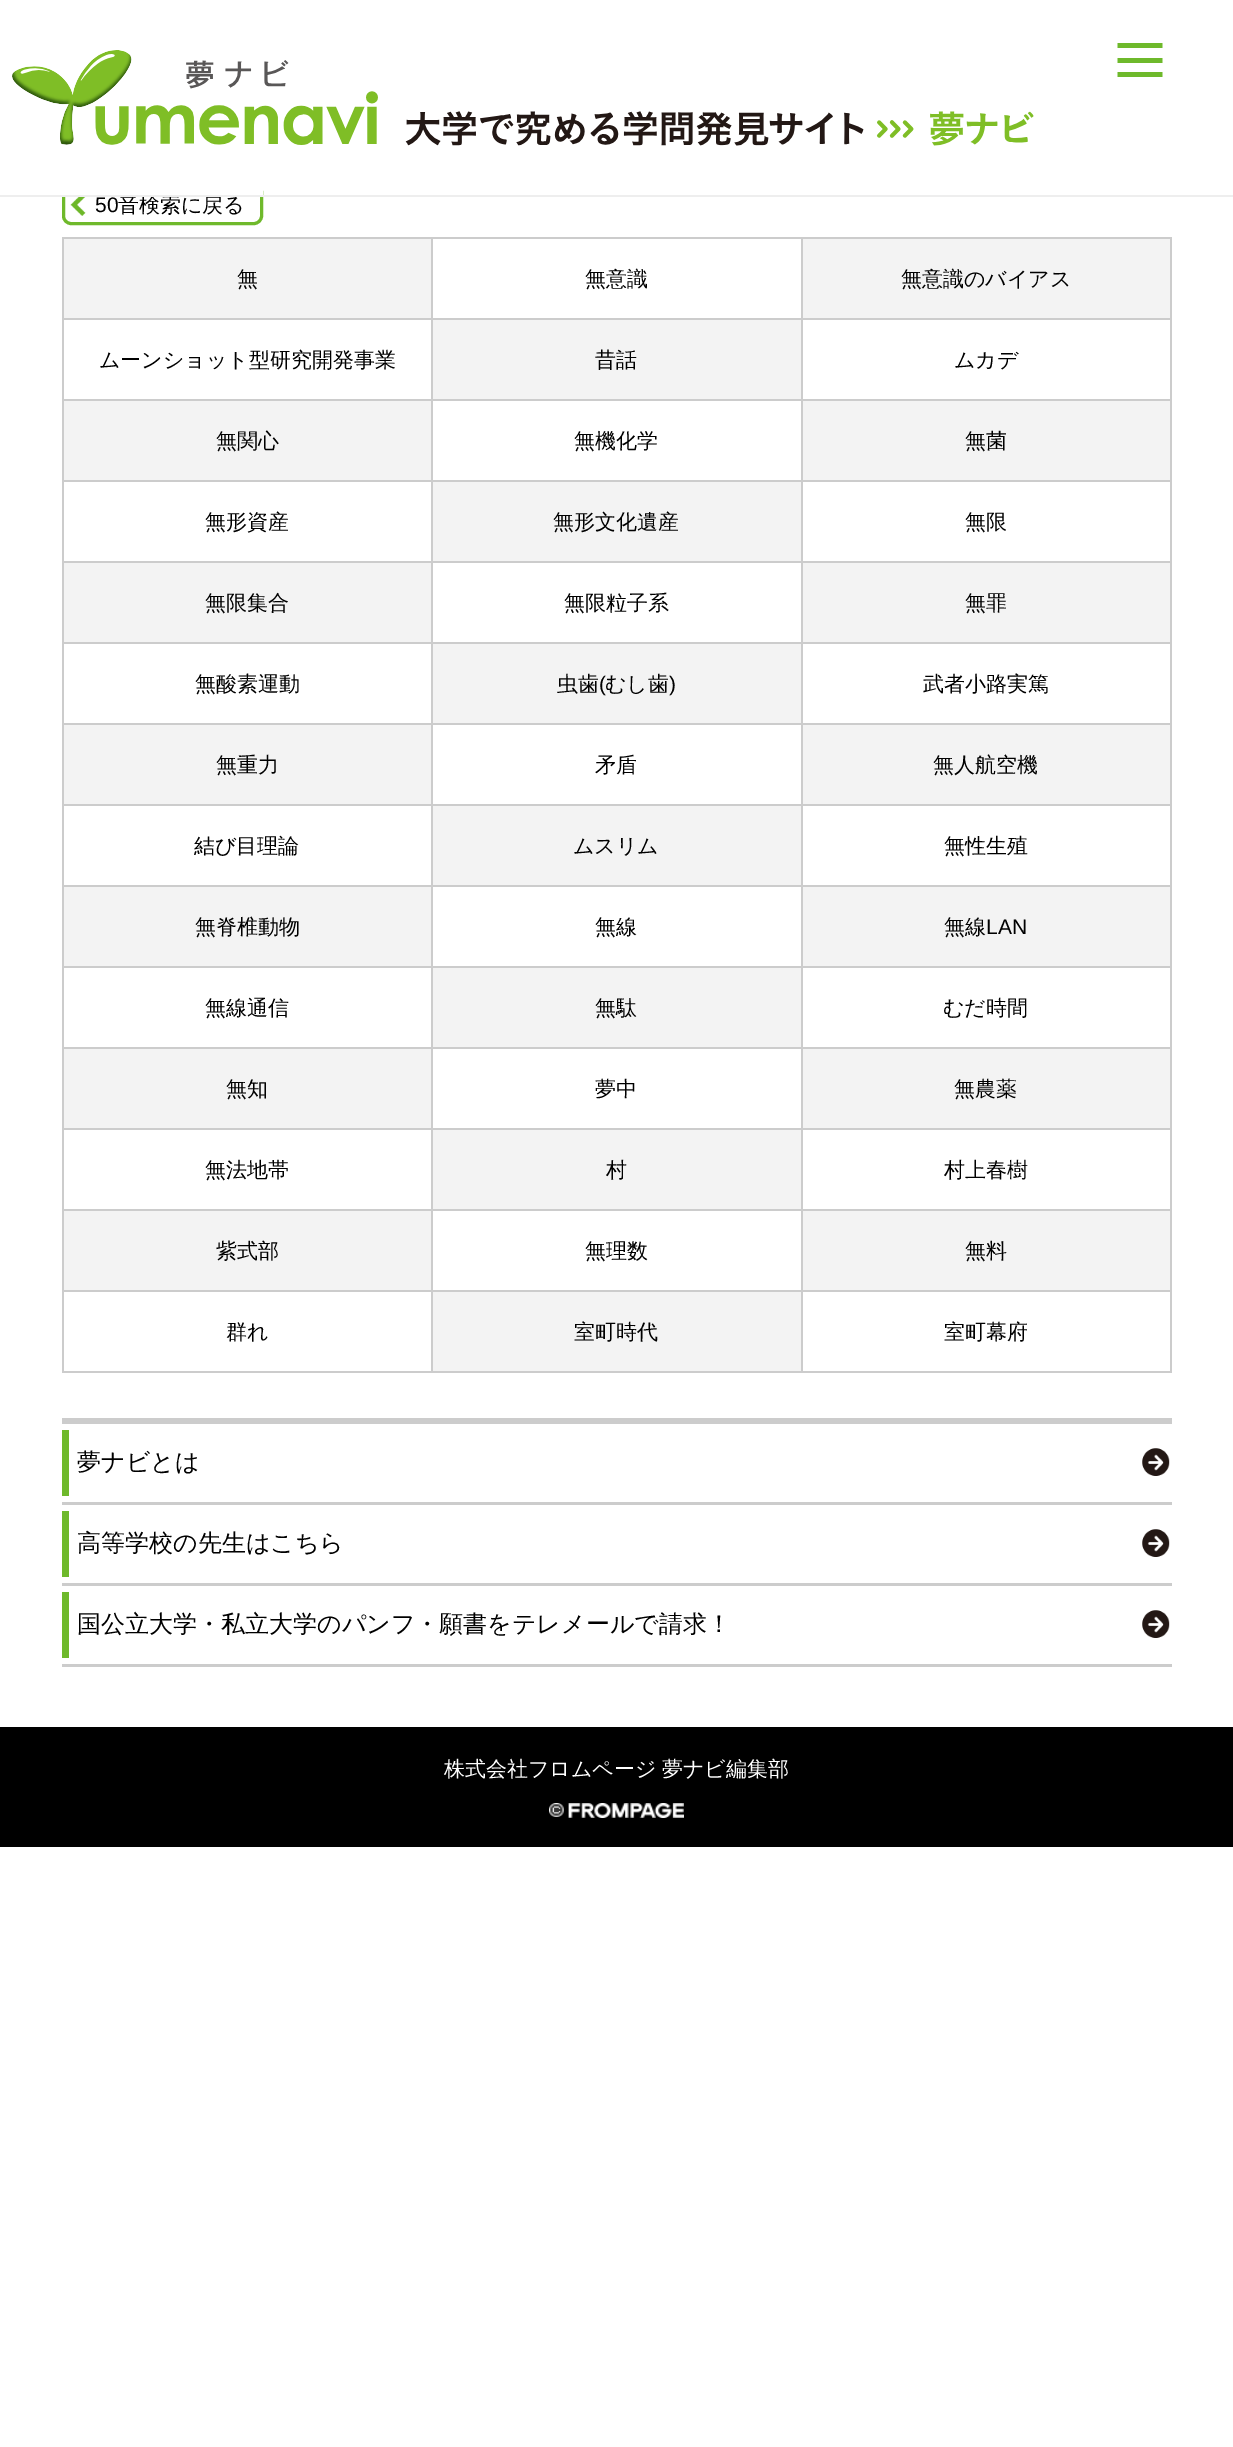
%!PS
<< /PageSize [1233 2447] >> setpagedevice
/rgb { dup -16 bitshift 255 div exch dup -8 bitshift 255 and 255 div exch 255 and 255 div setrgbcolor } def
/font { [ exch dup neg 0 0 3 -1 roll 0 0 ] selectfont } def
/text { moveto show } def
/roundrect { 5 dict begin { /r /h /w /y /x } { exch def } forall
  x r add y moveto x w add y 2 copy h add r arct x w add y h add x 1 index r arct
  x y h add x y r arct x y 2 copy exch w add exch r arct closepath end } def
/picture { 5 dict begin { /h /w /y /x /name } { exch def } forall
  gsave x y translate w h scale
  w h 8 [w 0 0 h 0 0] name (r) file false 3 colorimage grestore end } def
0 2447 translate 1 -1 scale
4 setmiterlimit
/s1 { /WenQuanYiZenHei-Medium 21 font 16#000000 rgb } def
/s2 { /LiberationSans-Regular 21 font 16#000000 rgb } def
/s3 { /WenQuanYiZenHei-Medium 24 font 16#000000 rgb } def
/s4 { /WenQuanYiZenHei-Medium 21 font 16#FFFFFF rgb } def
16#FFFFFF rgb
0 0 1233 2447 rectfill
(pic4.raw) 70 197 16 19 picture
16#6FB92B rgb
3 setlinewidth
63.5 184.5 198 39 7.5 roundrect stroke
s1
(音検索に戻る) 118 212 text
16#FFFFFF rgb
62 183 201 12 rectfill
16#EEEEEE rgb
0 195 1233 2 rectfill
(pic1.raw) 12 50 366 95 picture
(pic2.raw) 405 111 629 35 picture
(pic3.raw) 1117 43 46 34 picture
s2
(50) 95 212 text
16#F3F3F3 rgb
64 239 367 79 rectfill
16#CCCCCC rgb
801 237 371 2 rectfill
801 318 371 2 rectfill
801 399 371 2 rectfill
801 480 371 2 rectfill
801 561 371 2 rectfill
801 642 371 2 rectfill
801 723 371 2 rectfill
801 804 371 2 rectfill
801 885 371 2 rectfill
801 966 371 2 rectfill
801 1047 371 2 rectfill
801 1128 371 2 rectfill
801 1209 371 2 rectfill
801 1290 371 2 rectfill
1170 1290 2 83 rectfill
801 1371 371 2 rectfill
801 1290 2 83 rectfill
431 1290 372 2 rectfill
801 1209 2 83 rectfill
431 1209 372 2 rectfill
801 1128 2 83 rectfill
431 1128 372 2 rectfill
801 1047 2 83 rectfill
431 1047 372 2 rectfill
801 966 2 83 rectfill
431 966 372 2 rectfill
801 885 2 83 rectfill
431 885 372 2 rectfill
801 804 2 83 rectfill
431 804 372 2 rectfill
801 723 2 83 rectfill
431 723 372 2 rectfill
801 642 2 83 rectfill
431 642 372 2 rectfill
801 561 2 83 rectfill
431 561 372 2 rectfill
801 480 2 83 rectfill
431 480 372 2 rectfill
801 399 2 83 rectfill
431 399 372 2 rectfill
801 318 2 83 rectfill
431 318 372 2 rectfill
801 237 2 83 rectfill
431 237 372 2 rectfill
431 1371 372 2 rectfill
431 1290 2 83 rectfill
62 1290 370 2 rectfill
431 1209 2 83 rectfill
62 1209 370 2 rectfill
431 1128 2 83 rectfill
62 1128 370 2 rectfill
431 1047 2 83 rectfill
62 1047 370 2 rectfill
431 966 2 83 rectfill
62 966 370 2 rectfill
431 885 2 83 rectfill
62 885 370 2 rectfill
431 804 2 83 rectfill
62 804 370 2 rectfill
431 723 2 83 rectfill
62 723 370 2 rectfill
431 642 2 83 rectfill
62 642 370 2 rectfill
431 561 2 83 rectfill
62 561 370 2 rectfill
431 480 2 83 rectfill
62 480 370 2 rectfill
431 399 2 83 rectfill
62 399 370 2 rectfill
431 318 2 83 rectfill
62 318 370 2 rectfill
431 237 2 83 rectfill
62 237 370 2 rectfill
62 1371 370 2 rectfill
62 1290 2 83 rectfill
62 1209 2 83 rectfill
62 1128 2 83 rectfill
62 1047 2 83 rectfill
62 966 2 83 rectfill
62 885 2 83 rectfill
62 804 2 83 rectfill
62 723 2 83 rectfill
62 642 2 83 rectfill
62 561 2 83 rectfill
62 480 2 83 rectfill
62 399 2 83 rectfill
62 318 2 83 rectfill
62 237 2 83 rectfill
s1
(無) 237 286 text
(無意識) 585 286 text
16#F3F3F3 rgb
803 239 367 79 rectfill
16#CCCCCC rgb
1170 1209 2 83 rectfill
1170 1128 2 83 rectfill
1170 1047 2 83 rectfill
1170 966 2 83 rectfill
1170 885 2 83 rectfill
1170 804 2 83 rectfill
1170 723 2 83 rectfill
1170 642 2 83 rectfill
1170 561 2 83 rectfill
1170 480 2 83 rectfill
1170 399 2 83 rectfill
1170 318 2 83 rectfill
1170 237 2 83 rectfill
s1
(無意識のバイアス) 901 286 text
(ムーンショット型研究開発事業) 99 367 text
16#F3F3F3 rgb
433 320 368 79 rectfill
s1
(昔話) 595 367 text
(ムカデ) 954 367 text
16#F3F3F3 rgb
64 401 367 79 rectfill
s1
(無関心) 216 448 text
(無機化学) 574 448 text
16#F3F3F3 rgb
803 401 367 79 rectfill
s1
(無菌) 965 448 text
(無形資産) 205 529 text
16#F3F3F3 rgb
433 482 368 79 rectfill
s1
(無形文化遺産) 553 529 text
(無限) 965 529 text
16#F3F3F3 rgb
64 563 367 79 rectfill
s1
(無限集合) 205 610 text
(無限粒子系) 564 610 text
16#F3F3F3 rgb
803 563 367 79 rectfill
s1
(無罪) 965 610 text
(無酸素運動) 195 691 text
16#F3F3F3 rgb
433 644 368 79 rectfill
s1
(虫歯) 557 691 text
s2
(\() 599 691 text
s1
(むし歯) 605 691 text
s2
(\)) 669 691 text
s1
(武者小路実篤) 923 691 text
16#F3F3F3 rgb
64 725 367 79 rectfill
s1
(無重力) 216 772 text
(矛盾) 595 772 text
16#F3F3F3 rgb
803 725 367 79 rectfill
s1
(無人航空機) 933 772 text
(結び目理論) 194 853 text
16#F3F3F3 rgb
433 806 368 79 rectfill
s1
(ムスリム) 573 853 text
(無性生殖) 944 853 text
16#F3F3F3 rgb
64 887 367 79 rectfill
s1
(無脊椎動物) 195 934 text
(無線) 595 934 text
16#F3F3F3 rgb
803 887 367 79 rectfill
s1
(無線) 944 934 text
s2
(LAN) 986 934 text
s1
(無線通信) 205 1015 text
16#F3F3F3 rgb
433 968 368 79 rectfill
s1
(無駄) 595 1015 text
(むだ時間) 943 1015 text
16#F3F3F3 rgb
64 1049 367 79 rectfill
s1
(無知) 226 1096 text
(夢中) 595 1096 text
16#F3F3F3 rgb
803 1049 367 79 rectfill
s1
(無農薬) 954 1096 text
(無法地帯) 205 1177 text
16#F3F3F3 rgb
433 1130 368 79 rectfill
s1
(村) 606 1177 text
(村上春樹) 944 1177 text
16#F3F3F3 rgb
64 1211 367 79 rectfill
s1
(紫式部) 216 1258 text
(無理数) 585 1258 text
16#F3F3F3 rgb
803 1211 367 79 rectfill
s1
(無料) 965 1258 text
(群れ) 226 1339 text
16#F3F3F3 rgb
433 1292 368 79 rectfill
s1
(室町時代) 574 1339 text
(室町幕府) 944 1339 text
16#CCCCCC rgb
62 1418 1110 6 rectfill
62 1502 1110 3 rectfill
16#6EB92B rgb
62 1430 7 66 rectfill
s3
(夢ナビとは) 77 1470 text
(pic5.raw) 1142 1448 28 28 picture
16#CCCCCC rgb
62 1583 1110 3 rectfill
16#6EB92B rgb
62 1511 7 66 rectfill
s3
(高等学校の先生はこちら) 77 1551 text
(pic5.raw) 1142 1529 28 28 picture
16#CCCCCC rgb
62 1664 1110 3 rectfill
16#6EB92B rgb
62 1592 7 66 rectfill
s3
(国公立大学・私立大学のパンフ・願書をテレメールで請求！) 77 1632 text
(pic5.raw) 1142 1610 28 28 picture
0 1727 1233 120 rectfill
s4
(株式会社フロムページ) 444 1776 text
(夢ナビ編集部) 662 1776 text
(pic6.raw) 549 1803 135 15 picture
showpage
